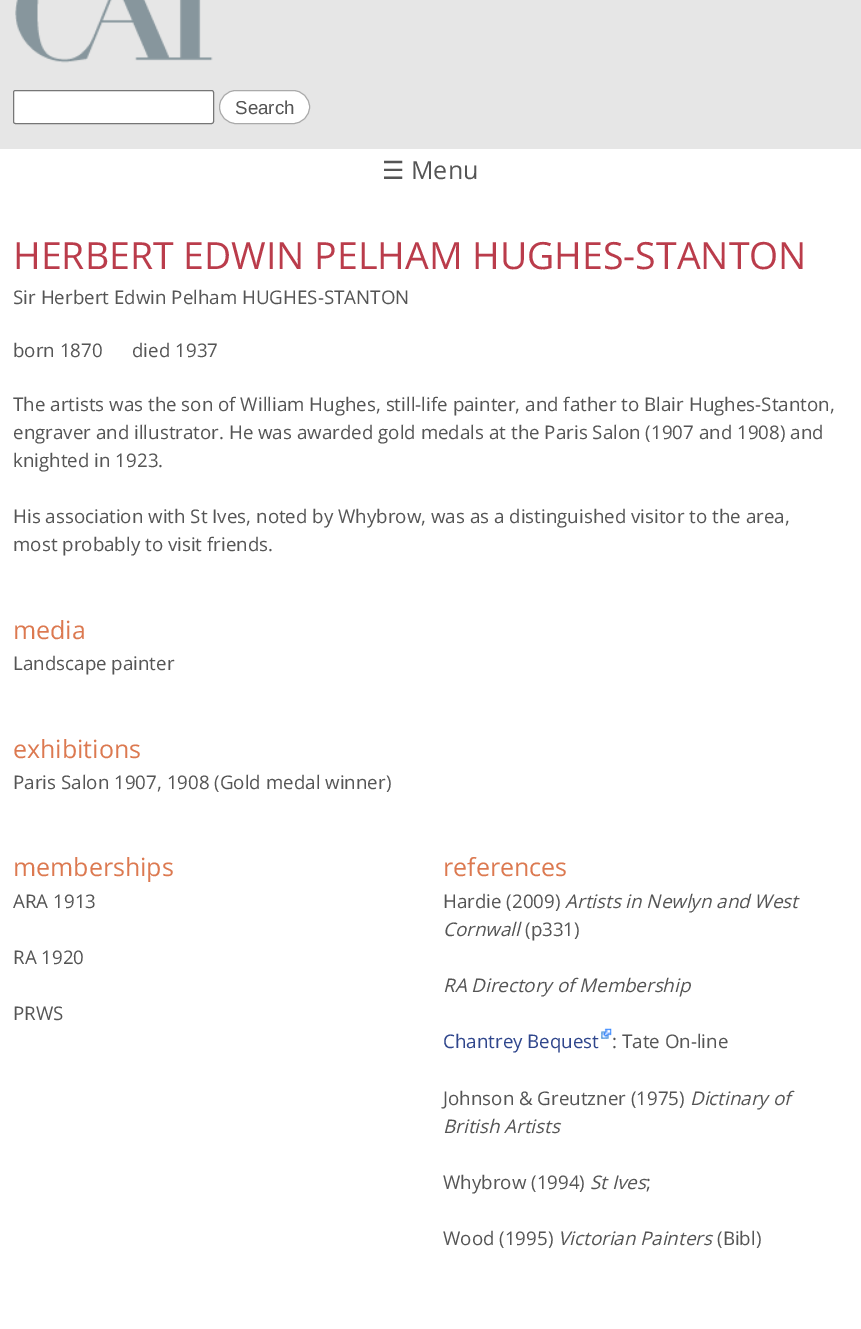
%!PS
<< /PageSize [861 1329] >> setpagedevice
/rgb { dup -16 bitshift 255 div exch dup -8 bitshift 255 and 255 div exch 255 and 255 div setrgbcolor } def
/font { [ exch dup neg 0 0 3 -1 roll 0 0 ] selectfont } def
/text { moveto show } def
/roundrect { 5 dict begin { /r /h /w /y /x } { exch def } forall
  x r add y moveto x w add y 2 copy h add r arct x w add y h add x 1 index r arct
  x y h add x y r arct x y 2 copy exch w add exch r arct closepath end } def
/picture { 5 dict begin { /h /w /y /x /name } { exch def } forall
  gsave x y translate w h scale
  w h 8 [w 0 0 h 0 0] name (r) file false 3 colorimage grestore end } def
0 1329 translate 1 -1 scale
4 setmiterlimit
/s1 { /LiberationSans-Regular 18.75 font 16#555555 rgb } def
/s2 { /DejaVuSans-Regular 25 font 16#555555 rgb } def
/s3 { /OpenSans-Regular 25 font 16#555555 rgb } def
/s4 { /OpenSans-Regular 37.5 font 16#BA3C4B rgb } def
/s5 { /OpenSans-Regular 18.75 font 16#555555 rgb } def
/s6 { /OpenSans-Regular 25 font 16#DC7950 rgb } def
/s7 { /OpenSans-Italic 18.75 font 16#555555 rgb } def
/s8 { /OpenSans-Regular 18.75 font 16#2F468C rgb } def
16#FFFFFF rgb
0 0 861 1329 rectfill
16#E6E6E6 rgb
0 0 861 149 rectfill
(pic1.raw) 15 0 198 63 picture
16#FFFFFF rgb
13.5 90.5 200 33 2 roundrect gsave fill grestore
16#767676 rgb
stroke
16#FFFFFF rgb
219.5 90.5 90 33 16.5 roundrect gsave fill grestore
16#AAAAAA rgb
stroke
s1
(Search) 235 114 text
s2
(☰) 382 179 text
s3
(Menu) 411 179 text
s4
(HERBERT EDWIN PELHAM HUGHES-STANTON) 13 269 text
s5
(Sir Herbert Edwin Pelham HUGHES-STANTON) 13 304 text
(born 1870) 13 357 text
(died 1937) 132 357 text
(The artists was the son of William Hughes, still-life painter, and father to Blair Hughes-Stanton,) 13 411 text
(engraver and illustrator. He was awarded gold medals at the Paris Salon \(1907 and 1908\) and) 13 439 text
(knighted in 1923.) 13 467 text
(His association with St Ives, noted by Whybrow, was as a distinguished visitor to the area,) 13 523 text
(most probably to visit friends.) 13 551 text
s6
(media) 13 639 text
s5
(Landscape painter) 13 670 text
s6
(exhibitions) 13 758 text
s5
(Paris Salon 1907, 1908 \(Gold medal winner\)) 13 789 text
s6
(memberships) 13 876 text
s5
(ARA 1913) 13 908 text
(RA 1920) 13 964 text
(PRWS) 13 1020 text
s6
(references) 443 876 text
s5
(Hardie \(2009\)) 443 908 text
s7
(Artists in Newlyn and West) 565 908 text
(Cornwall) 443 936 text
s5
(\(p331\)) 525 936 text
s7
(RA Directory of Membership) 443 992 text
s8
(Chantrey Bequest) 443 1048 text
(pic2.raw) 601 1028 11 11 picture
s5
(: Tate On-line) 612 1048 text
(Johnson & Greutzner \(1975\)) 443 1105 text
s7
(Dictinary of) 690 1105 text
(British Artists) 443 1133 text
s5
(Whybrow \(1994\)) 443 1189 text
s7
(St Ives) 590 1189 text
s5
(;) 646 1189 text
(Wood \(1995\)) 443 1245 text
s7
(Victorian Painters) 558 1245 text
s5
(\(Bibl\)) 717 1245 text
showpage
